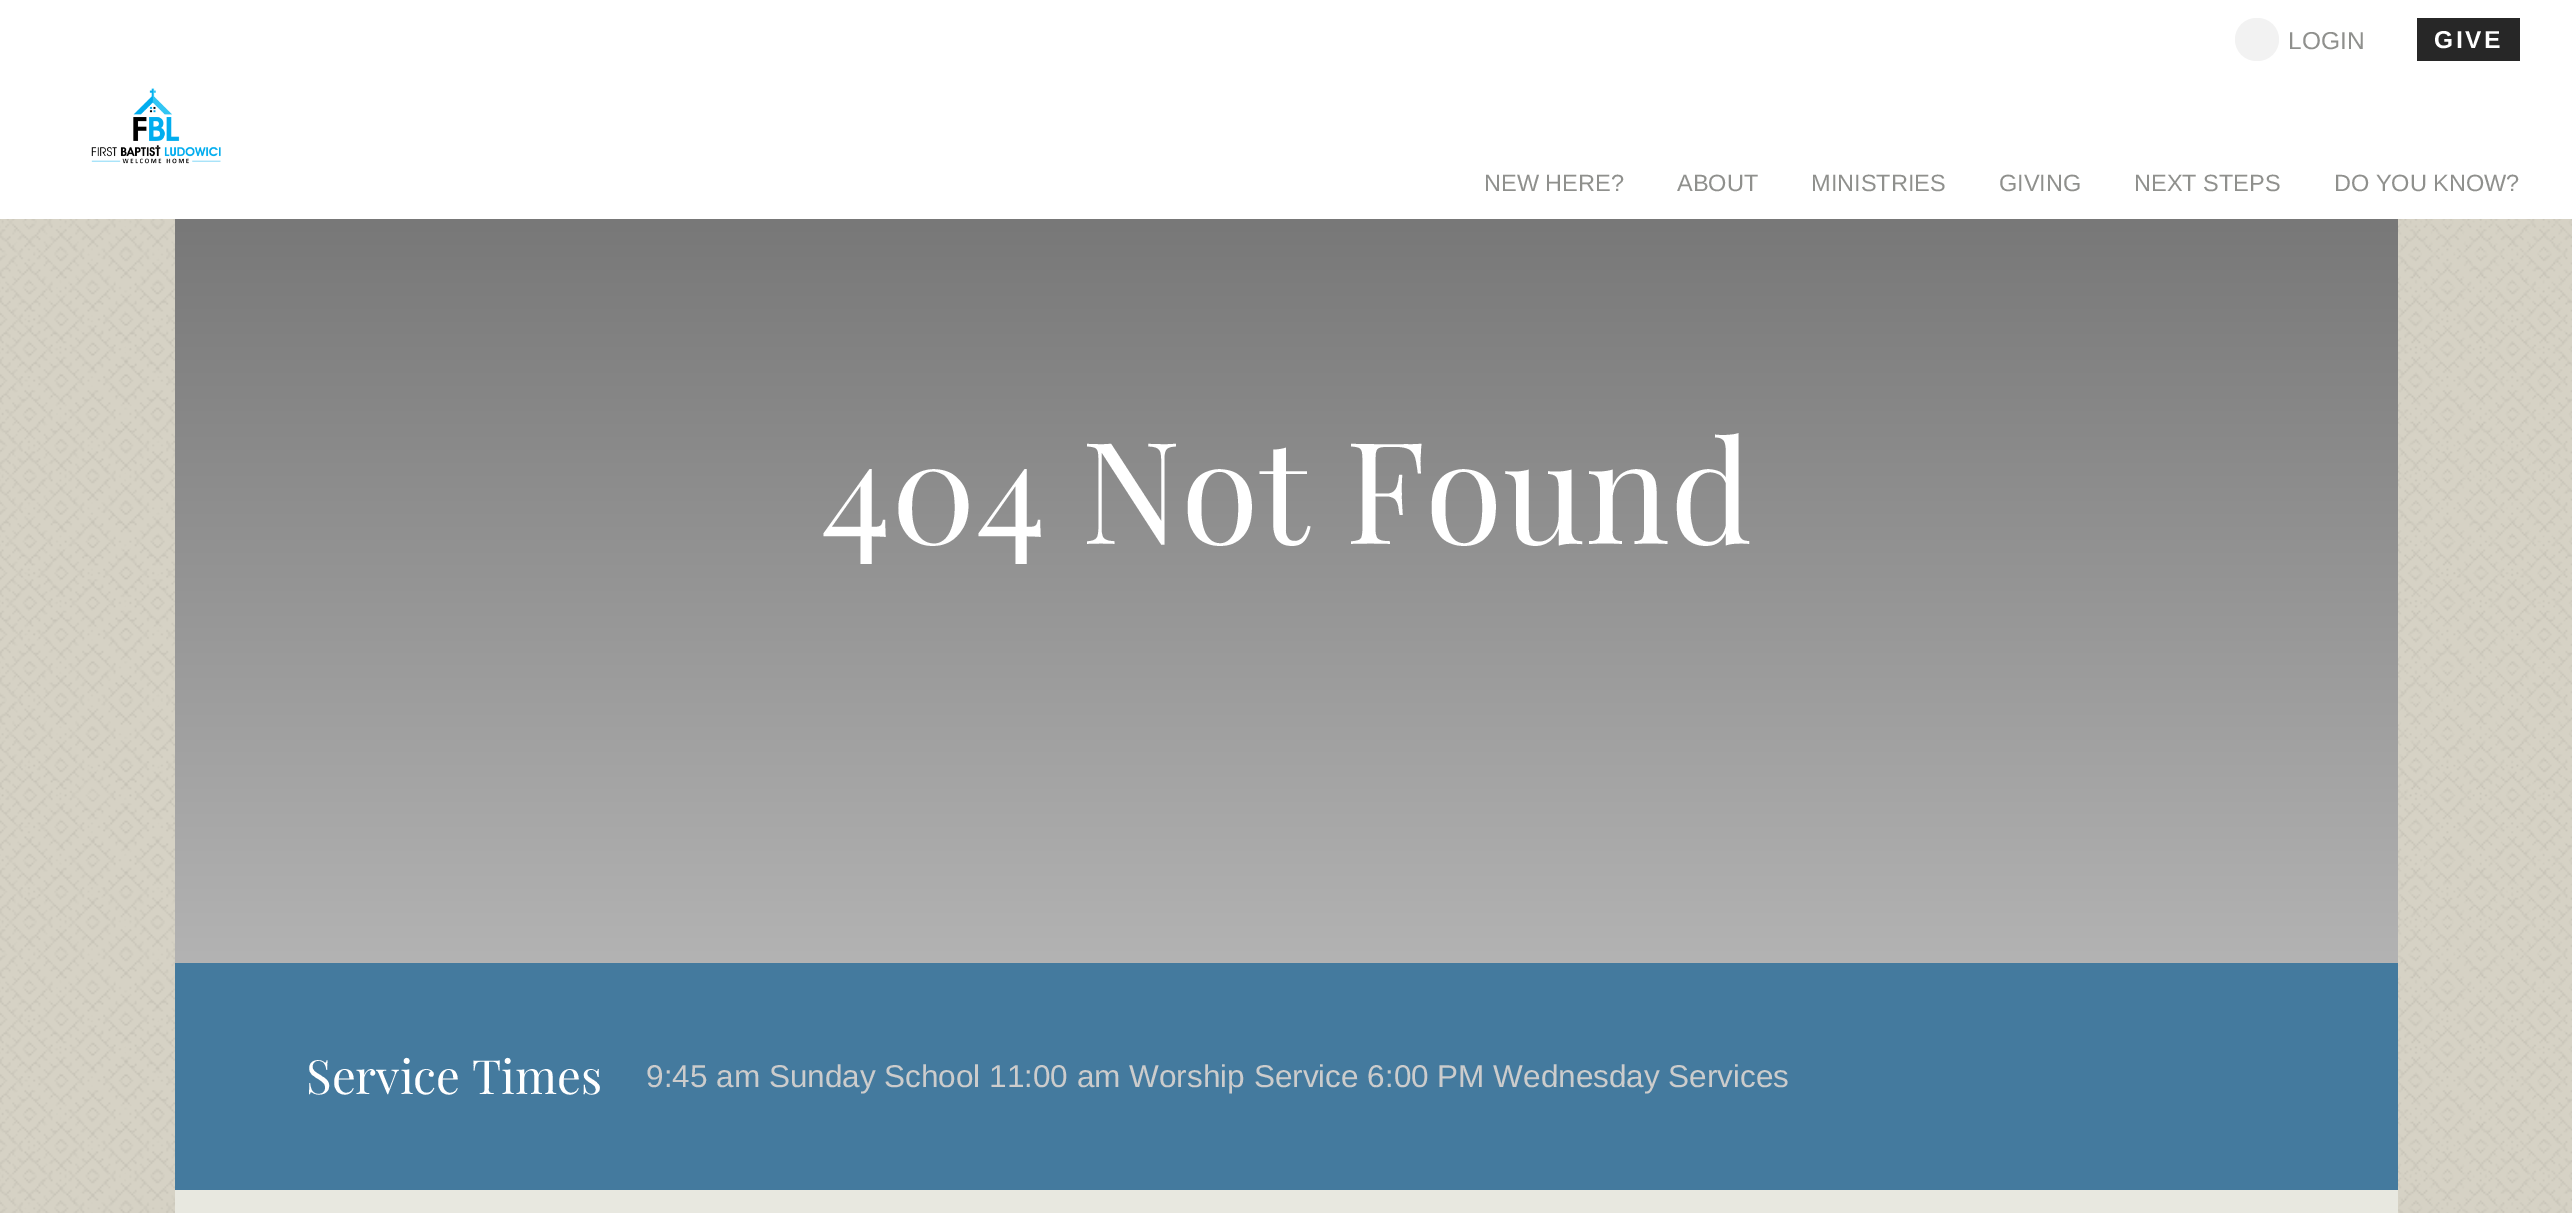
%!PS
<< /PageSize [2572 1213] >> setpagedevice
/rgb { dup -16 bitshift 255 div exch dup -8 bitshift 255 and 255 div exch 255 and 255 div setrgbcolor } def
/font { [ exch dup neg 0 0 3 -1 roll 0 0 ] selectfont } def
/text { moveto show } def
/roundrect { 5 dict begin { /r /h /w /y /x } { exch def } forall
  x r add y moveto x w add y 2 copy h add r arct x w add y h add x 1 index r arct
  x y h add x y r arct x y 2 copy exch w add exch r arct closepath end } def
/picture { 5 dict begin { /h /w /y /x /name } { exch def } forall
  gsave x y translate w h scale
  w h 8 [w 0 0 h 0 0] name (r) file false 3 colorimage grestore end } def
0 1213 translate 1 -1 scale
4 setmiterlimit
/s1 { /LiberationSans-Regular 24.5 font 16#8F908D rgb } def
/s2 { /LiberationSans-Regular 23.5 font 16#8F908D rgb } def
/s3 { /PlayfairDisplay-Regular 141.75 font 16#FFFFFF rgb } def
/s4 { /PlayfairDisplay-Regular 47.25 font 16#FFFFFF rgb } def
/s5 { /LiberationSans-Regular 31.5 font 16#CCCCCC rgb } def
16#D6D2C5 rgb
0 0 2572 1213 rectfill
(pic1.raw) 0 219 2572 994 picture
16#FFFFFF rgb
0 0 2572 219 rectfill
(pic2.raw) 91 88 130 76 picture
16#F2F2F2 rgb
2235 18 44 43 21.5 roundrect fill
s1
(LOGIN) 2288 49 text
16#272727 rgb
2417 18 103 43 rectfill
/LiberationSans-Bold 24.5 font
16#FFFFFF rgb
2434 48 moveto 2.5 0 (GIVE) ashow
s2
(NEW HERE?) 1484 191 text
(ABOUT) 1677 191 text
(MINISTRIES) 1811 191 text
(GIVING) 1999 191 text
(NEXT STEPS) 2134 191 text
(DO YOU KNOW?) 2334 191 text
gsave 175 219 moveto 2398 219 lineto 2398 963 lineto 175 963 lineto closepath clip newpath
<< /ShadingType 2 /ColorSpace /DeviceRGB /Coords [1286 0 1286 963] /Extend [true true] /Function << /FunctionType 2 /Domain [0 1] /C0 [0.4 0.4 0.4] /C1 [0.702 0.702 0.702] /N 1 >> >> shfill grestore
s3
(404 Not Found) 821 544 text
16#447A9E rgb
175 963 2223 227 rectfill
s4
(Service Times) 306 1094 text
s5
(9:45 am Sunday School 11:00 am Worship Service 6:00 PM Wednesday Services) 646 1087 text
16#E8E8E0 rgb
175 1190 2223 23 rectfill
showpage
